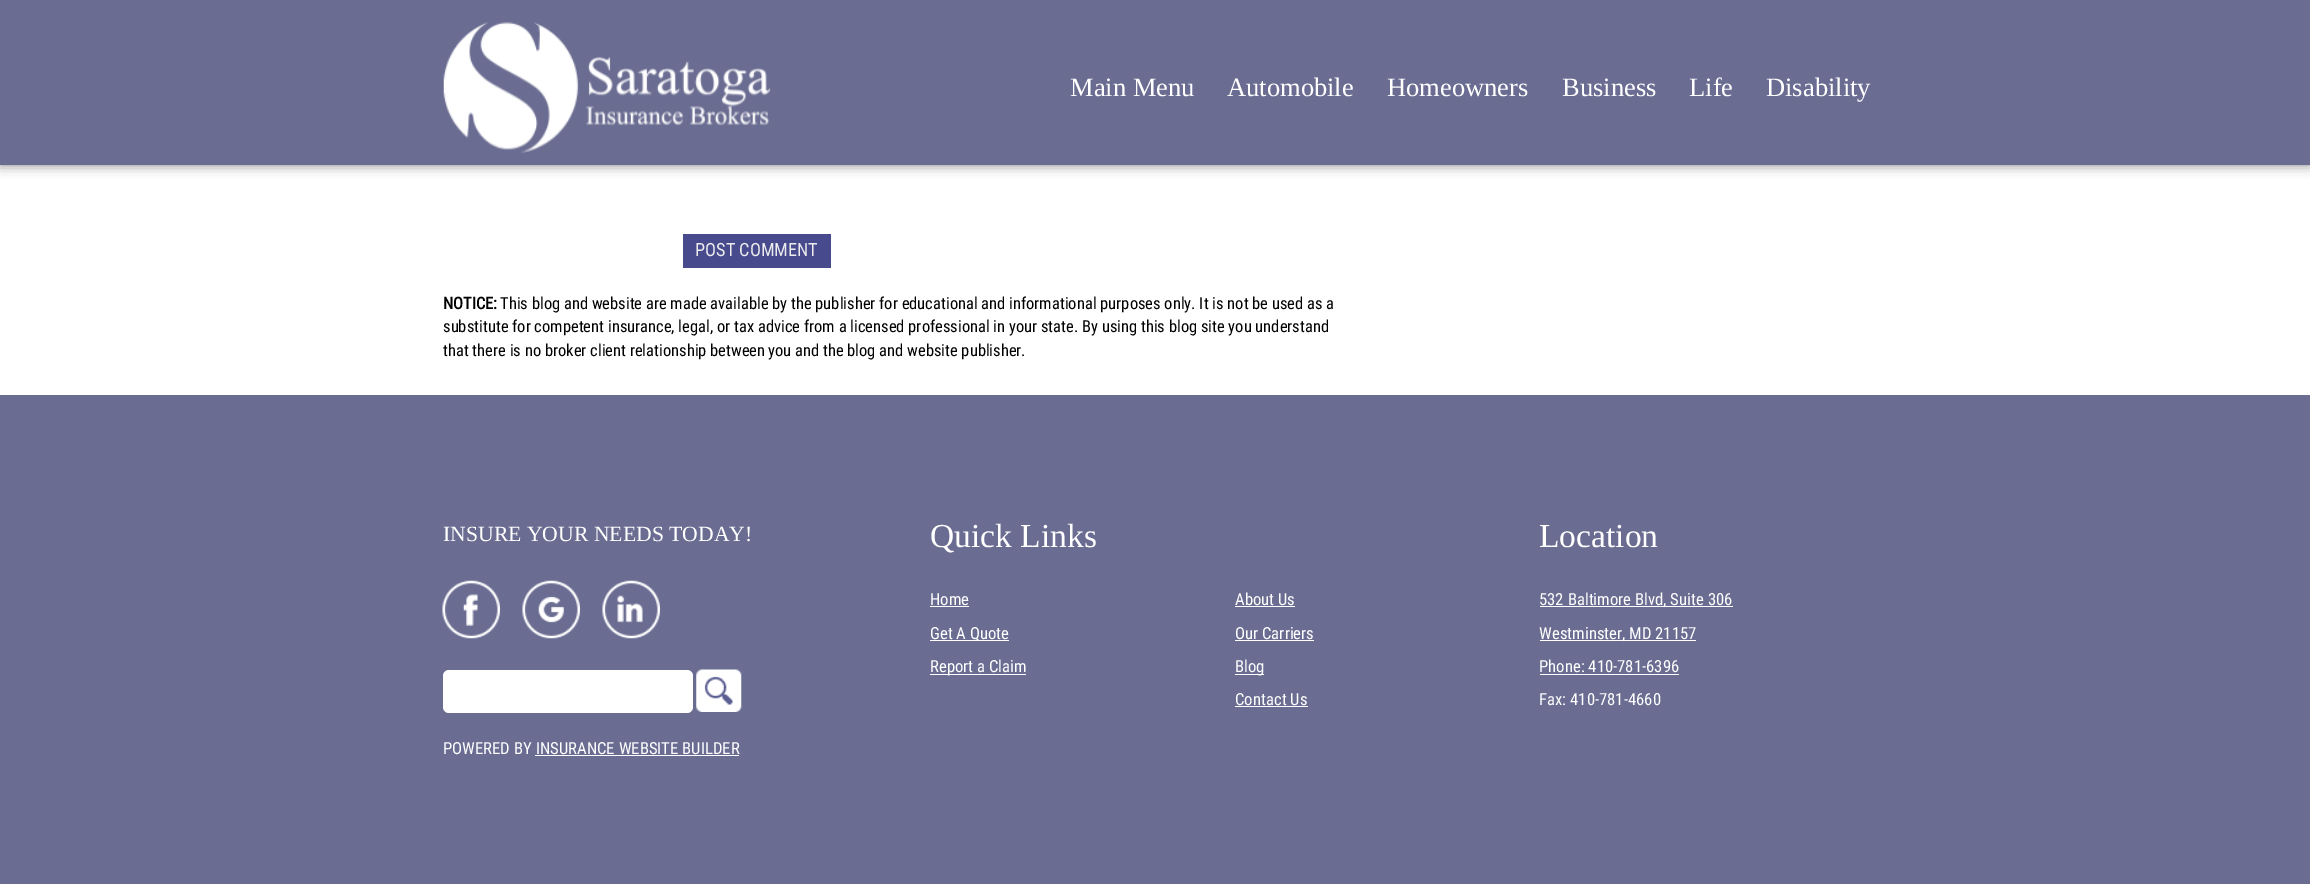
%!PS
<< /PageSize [2310 884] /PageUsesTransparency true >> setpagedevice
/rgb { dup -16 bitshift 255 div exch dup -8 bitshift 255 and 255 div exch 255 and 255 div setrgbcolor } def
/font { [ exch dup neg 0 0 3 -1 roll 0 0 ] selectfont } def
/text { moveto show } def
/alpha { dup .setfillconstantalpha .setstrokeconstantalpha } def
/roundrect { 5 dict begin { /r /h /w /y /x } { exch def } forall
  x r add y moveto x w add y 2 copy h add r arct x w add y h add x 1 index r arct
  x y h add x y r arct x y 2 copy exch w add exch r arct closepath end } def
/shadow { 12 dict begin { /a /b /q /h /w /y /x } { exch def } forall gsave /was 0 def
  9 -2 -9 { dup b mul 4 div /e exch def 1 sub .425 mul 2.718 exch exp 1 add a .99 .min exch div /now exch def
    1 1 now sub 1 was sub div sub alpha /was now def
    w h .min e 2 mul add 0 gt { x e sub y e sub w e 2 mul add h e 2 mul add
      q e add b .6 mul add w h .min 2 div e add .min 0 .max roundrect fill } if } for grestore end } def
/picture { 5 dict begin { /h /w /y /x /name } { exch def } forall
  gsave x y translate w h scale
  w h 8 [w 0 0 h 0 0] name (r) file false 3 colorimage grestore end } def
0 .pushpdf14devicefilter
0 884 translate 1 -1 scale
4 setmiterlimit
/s1 { /Tinos-Regular 26.5 font 16#FFFFFF rgb } def
/s2 { /RobotoCondensed-Regular 18.25 font 16#EDEDED rgb } def
/s3 { /RobotoCondensed-Bold 16.5 font 16#000000 rgb } def
/s4 { /RobotoCondensed-Regular 16.5 font 16#000000 rgb } def
/s5 { /Tinos-Regular 21.7 font 16#FFFFFF rgb } def
/s6 { /Tinos-Regular 33.5 font 16#FFFFFF rgb } def
/s7 { /RobotoCondensed-Regular 16.7 font 16#FFFFFF rgb } def
16#FFFFFF rgb
0 0 2310 884 rectfill
16#000000 rgb
0 0 2310 165 0 6 0.5 shadow
16#6A6C91 rgb
0 0 2310 165 rectfill
(pic1.raw) 443 22 328 131 picture
s1
(Main Menu) 1070 96 text
(Automobile) 1227 96 text
(Homeowners) 1387 96 text
(Business) 1562 96 text
(Life) 1689 96 text
(Disability) 1766 96 text
16#474B8D rgb
683 234 148 34 rectfill
s2
(POST COMMENT) 695 256 text
s3
(NOTICE:) 443 309 text
s4
(This blog and website are made available by the publisher for educational and informational purposes only. It is not be used as a) 500 309 text
(substitute for competent insurance, legal, or tax advice from a licensed professional in your state. By using this blog site you understand) 443 332 text
(that there is no broker client relationship between) 443 356 text
(you and the blog and website publisher.) 768 356 text
16#6A6C91 rgb
0 395 2310 489 rectfill
s5
(INSURE YOUR NEEDS TODAY!) 443 541 text
(pic2.raw) 442 580 58 59 picture
(pic3.raw) 522 580 58 59 picture
(pic4.raw) 602 580 58 59 picture
443 670 250 43 6 roundrect fill
(pic5.raw) 696 669 46 43 picture
s6
(Quick Links) 930 547 text
s7
(Home) 930 605 text
930 606 39 1 rectfill
930 640 79 1 rectfill
(Get A Quote) 930 639 text
930 674 96 1 rectfill
(Report a Claim) 930 672 text
(About Us) 1235 605 text
1235 606 60 1 rectfill
(Our Carriers) 1235 639 text
1235 640 79 1 rectfill
1235 674 29 1 rectfill
(Blog) 1235 672 text
(Contact Us) 1235 705 text
1235 706 73 1 rectfill
s6
(Location) 1539 547 text
1540 606 193 1 rectfill
s7
(532 Baltimore Blvd, Suite 306) 1539 605 text
1540 640 156 1 rectfill
(Westminster, MD 21157) 1539 639 text
(Phone: 410-781-6396) 1539 672 text
1540 674 139 1 rectfill
(Fax: 410-781-4660) 1539 705 text
(POWERED BY INSURANCE WEBSITE BUILDER) 443 754 text
535 755 204 1 rectfill
.poppdf14devicefilter showpage
